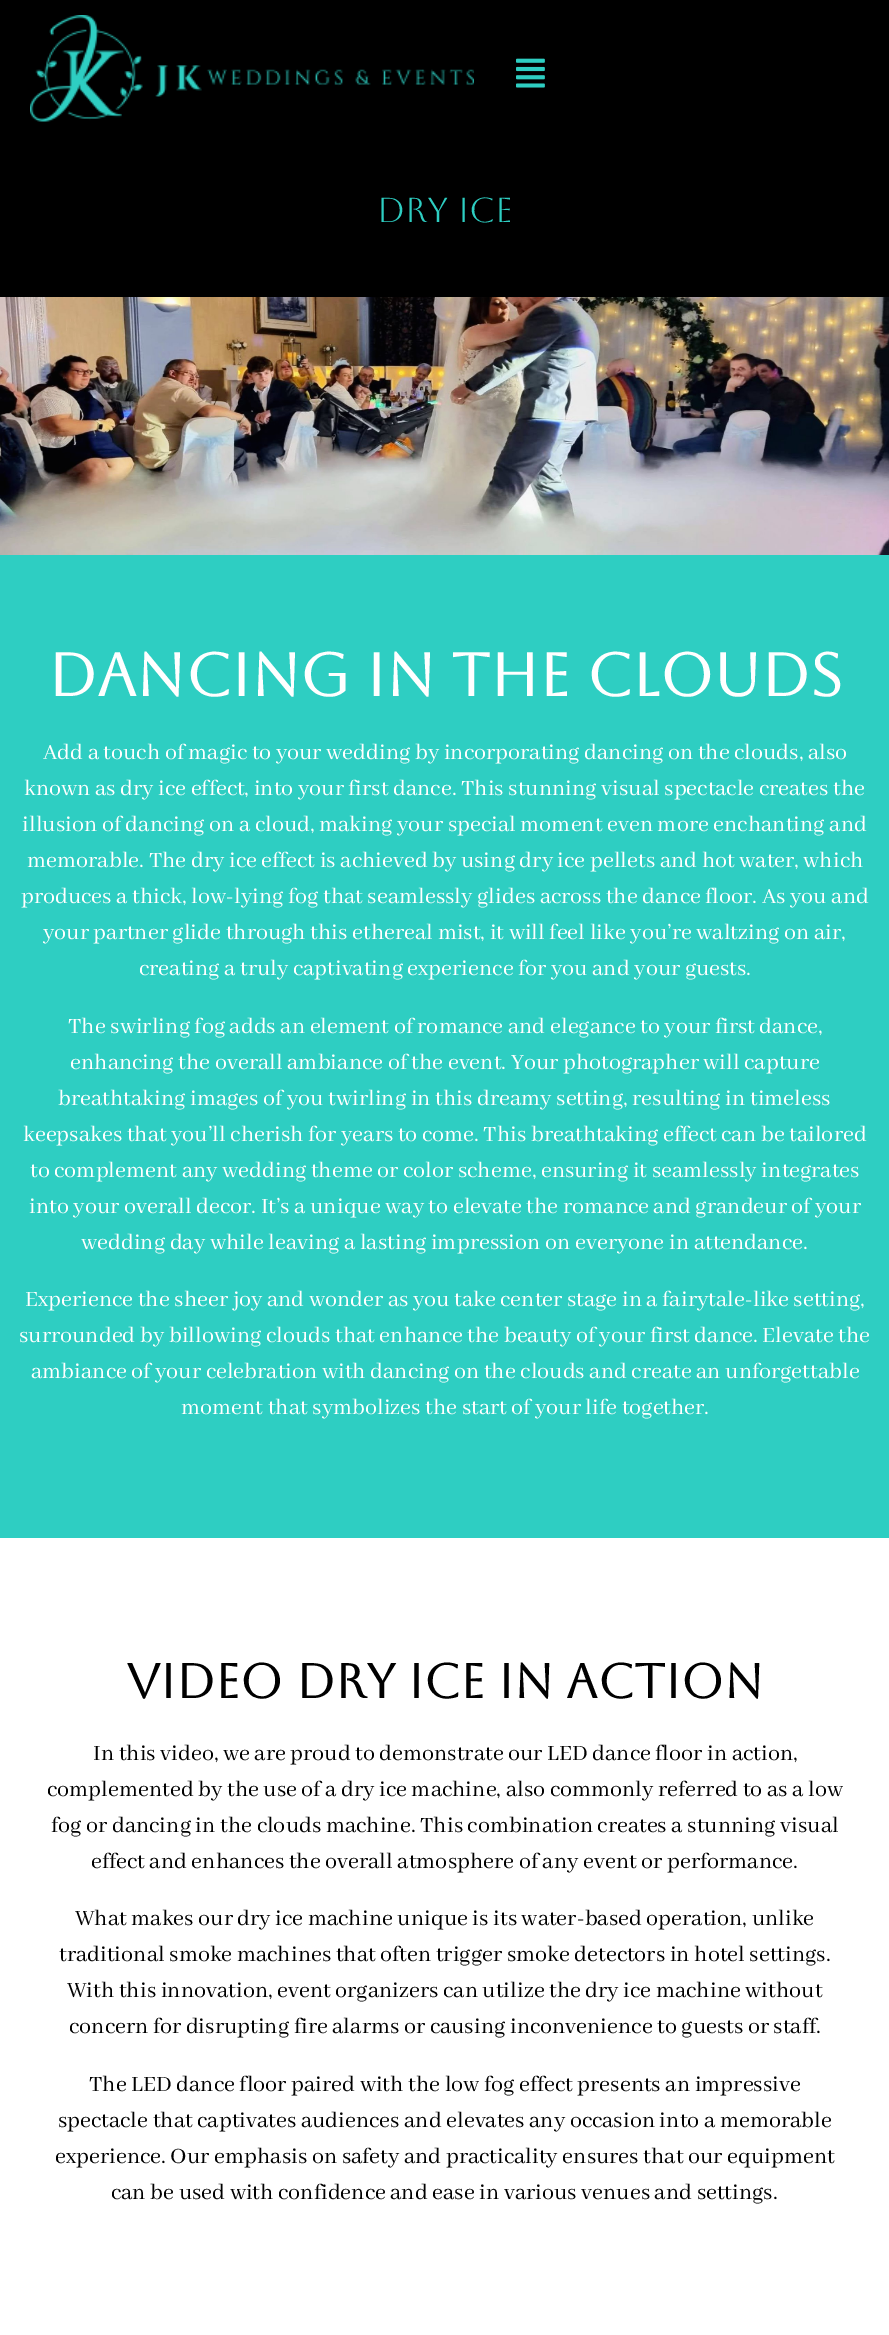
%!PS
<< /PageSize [889 2335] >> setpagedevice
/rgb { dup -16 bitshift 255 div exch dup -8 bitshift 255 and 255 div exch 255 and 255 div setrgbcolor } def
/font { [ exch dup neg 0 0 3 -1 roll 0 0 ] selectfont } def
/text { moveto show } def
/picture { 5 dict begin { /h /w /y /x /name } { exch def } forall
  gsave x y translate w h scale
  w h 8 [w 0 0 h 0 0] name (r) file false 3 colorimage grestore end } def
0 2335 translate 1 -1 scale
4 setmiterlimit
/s1 { /Aboreto-Regular 34.5 font 16#2ECEC2 rgb } def
/s2 { /Aboreto-Bold 60 font 16#FFFFFF rgb } def
/s3 { /AbhayaLibre-Regular 24 font 16#FFFFFF rgb } def
/s4 { /Aboreto-Bold 48 font 16#000000 rgb } def
/s5 { /AbhayaLibre-Regular 24 font 16#000000 rgb } def
16#FFFFFF rgb
0 0 889 2335 rectfill
16#000000 rgb
0 0 889 297 rectfill
(pic1.raw) 30 15 444 107 picture
(pic2.raw) 516 58 29 30 picture
s1
(Dry Ice) 377 222 text
(pic3.raw) 0 297 889 258 picture
0 555 889 983 rectfill
s2
(Dancing In the Clouds) 48 696 text
s3
(Add a touch of magic to your wedding by incorporating dancing on the clouds, also) 43 759 text
(known as dry ice effect, into your first dance. This stunning visual spectacle creates the) 24 795 text
(illusion of dancing on a cloud, making your special moment even more enchanting and) 22 831 text
(memorable. The dry ice effect is achieved by using dry ice pellets and hot water, which) 27 867 text
(produces a thick, low-lying fog that seamlessly glides across the dance floor. As you and) 21 903 text
(your partner glide through this ethereal mist, it will feel like you’re waltzing on air,) 43 939 text
(creating a truly captivating experience for you and your guests.) 139 975 text
(The swirling fog adds an element of romance and elegance to your first dance,) 68 1033 text
(enhancing the overall ambiance of the event. Your photographer will capture) 70 1069 text
(breathtaking images of you twirling in this dreamy setting, resulting in timeless) 58 1105 text
(keepsakes that you’ll cherish for years to come. This breathtaking effect can be tailored) 23 1141 text
(to complement any wedding theme or color scheme, ensuring it seamlessly integrates) 30 1177 text
(into your overall decor. It’s a unique way to elevate the romance and grandeur of your) 29 1213 text
(wedding day while leaving a lasting impression on everyone in attendance.) 81 1249 text
(Experience the sheer joy and wonder as you take center stage in a fairytale-like setting,) 25 1306 text
(surrounded by billowing clouds that enhance the beauty of your first dance. Elevate the) 19 1342 text
(ambiance of your celebration with dancing on the clouds and create an unforgettable) 31 1378 text
(moment that symbolizes the start of your life together.) 181 1414 text
s4
(Video Dry Ice in action) 126 1698 text
s5
(In this video, we are proud to demonstrate our LED dance floor in action,) 93 1760 text
(complemented by the use of a dry ice machine, also commonly referred to as a low) 47 1796 text
(fog or dancing in the clouds machine. This combination creates a stunning visual) 51 1832 text
(effect and enhances the overall atmosphere of any event or performance.) 91 1868 text
(What makes our dry ice machine unique is its water-based operation, unlike) 75 1925 text
(traditional smoke machines that often trigger smoke detectors in hotel settings.) 59 1961 text
(With this innovation, event organizers can utilize the dry ice machine without) 67 1997 text
(concern for disrupting fire alarms or causing inconvenience to guests or staff.) 69 2033 text
(The LED dance floor paired with the low fog effect presents an impressive) 89 2091 text
(spectacle that captivates audiences and elevates any occasion into a memorable) 58 2127 text
(experience. Our emphasis on safety and practicality ensures that our equipment) 55 2163 text
(can be used with confidence and ease in various venues and settings.) 111 2199 text
showpage
